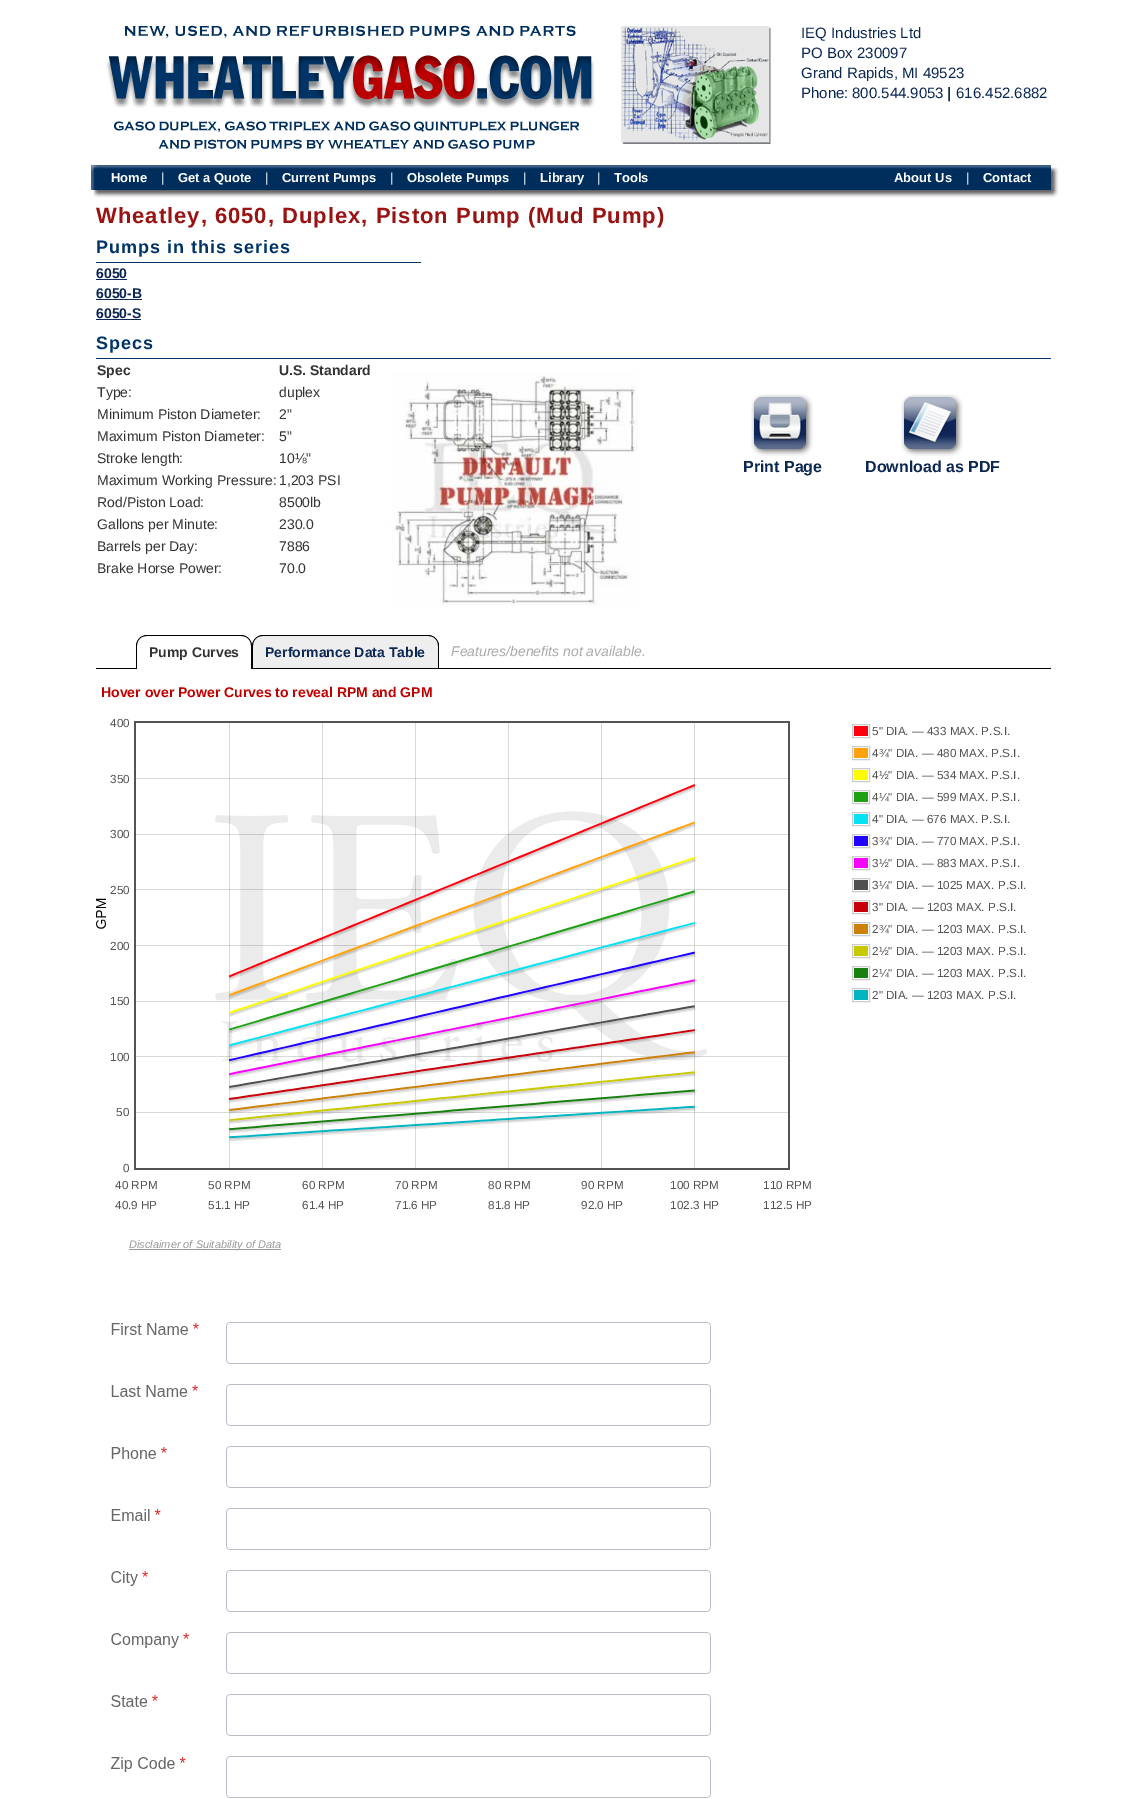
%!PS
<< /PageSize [1142 1799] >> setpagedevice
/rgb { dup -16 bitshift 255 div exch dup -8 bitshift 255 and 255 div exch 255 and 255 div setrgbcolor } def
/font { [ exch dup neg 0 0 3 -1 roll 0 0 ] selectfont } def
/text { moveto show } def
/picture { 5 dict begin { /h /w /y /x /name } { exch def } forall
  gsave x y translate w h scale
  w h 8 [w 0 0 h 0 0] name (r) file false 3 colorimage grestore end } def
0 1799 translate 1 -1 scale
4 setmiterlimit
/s1 { /LiberationSans-Regular 15 font 16#0C2852 rgb } def
/s2 { /LiberationSans-Bold 15 font 16#0C2852 rgb } def
/s3 { /LiberationSans-Bold 13 font 16#FFFFFF rgb } def
/s4 { /LiberationSans-Regular 13 font 16#FFFFFF rgb } def
/s5 { /LiberationSans-Bold 14 font 16#0C2852 rgb } def
/s6 { /LiberationSans-Bold 14 font 16#333333 rgb } def
/s7 { /LiberationSans-Regular 14 font 16#333333 rgb } def
/s8 { /LiberationSans-Bold 16 font 16#0C2852 rgb } def
/s9 { /LiberationSans-Italic 14 font 16#AAAAAA rgb } def
/s10 { /LiberationSans-Bold 14 font 16#C00000 rgb } def
/s11 { /LiberationSans-Regular 11.7 font 16#545454 rgb } def
/s12 { /LiberationSans-Italic 11 font 16#999999 rgb } def
16#FFFFFF rgb
0 0 1142 1799 rectfill
(pic1.raw) 125 25 451 13 picture
(pic2.raw) 621 26 150 118 picture
s1
(IEQ Industries Ltd) 801 38 text
(PO Box 230097) 801 58 text
(Grand Rapids, MI 49523) 801 78 text
(Phone:) 801 98 text
(800.544.9053) 852 98 text
s2
(|) 947 98 text
s1
(616.452.6882) 956 98 text
(pic3.raw) 91 165 968 33 picture
s3
(Home) 111 182 text
s4
(|) 161 182 text
s3
(Get a Quote) 178 182 text
s4
(|) 265 182 text
s3
(Current Pumps) 282 182 text
s4
(|) 390 182 text
s3
(Obsolete Pumps) 407 182 text
s4
(|) 523 182 text
s3
(Library) 540 182 text
s4
(|) 597 182 text
s3
(Tools) 614 182 text
(About Us) 894 182 text
s4
(|) 966 182 text
s3
(Contact) 983 182 text
(pic4.raw) 106 55 489 54 picture
(pic5.raw) 114 121 466 28 picture
/LiberationSans-Bold 22 font
16#9A1313 rgb
96 223 moveto 1 0 (Wheatley, 6050, Duplex, Piston Pump \(Mud Pump\)) ashow
16#003366 rgb
96 262 325 1 rectfill
/LiberationSans-Bold 18 font
96 253 moveto 1 0 (Pumps in this series) ashow
s5
(6050) 96 278 text
96 279 31 1 rectfill
(6050-B) 96 298 text
96 299 46 1 rectfill
(6050-S) 96 318 text
96 319 45 1 rectfill
16#003366 rgb
96 358 955 1 rectfill
/LiberationSans-Bold 18 font
96 349 moveto 1 0 (Specs) ashow
s6
(Spec) 97 375 text
(U.S. Standard) 279 375 text
s7
(Type:) 97 397 text
(duplex) 279 397 text
(Minimum Piston Diameter:) 97 419 text
(2") 279 419 text
(Maximum Piston Diameter:) 97 441 text
(5") 279 441 text
(Stroke length:) 97 463 text
(10⅛") 279 463 text
(Maximum Working Pressure:) 97 485 text
(1,203 PSI) 279 485 text
(Rod/Piston Load:) 97 507 text
(8500lb) 279 507 text
(Gallons per Minute:) 97 529 text
(230.0) 279 529 text
(Barrels per Day:) 97 551 text
(7886) 279 551 text
(Brake Horse Power:) 97 573 text
(70.0) 279 573 text
(pic6.raw) 391 372 247 234 picture
(pic7.raw) 751 394 62 62 picture
s8
(Print Page) 743 472 text
(pic8.raw) 901 394 62 62 picture
(Download as PDF) 865 472 text
16#000000 rgb
96 668 955 1 rectfill
16#FFFFFF rgb
147 636 moveto 241 636 lineto 246.5 636 251 640.5 251 646 curveto 251 669 lineto 137 669 lineto 137 646 lineto 137 640.5 141.5 636 147 636 curveto closepath fill
16#000000 rgb
147 635 moveto 241 635 lineto 247 635 252 640 252 646 curveto 252 669 lineto 136 669 lineto 136 646 lineto 136 640 141 635 147 635 curveto closepath 147 636 moveto 241 636 lineto 247 636 251 640 251 646 curveto 251 669 lineto 137 669 lineto 137 646 lineto 137 640 141 636 147 636 curveto closepath eofill
s6
(Pump Curves) 149 657 text
16#EEEEEE rgb
263 636 moveto 428 636 lineto 433.5 636 438 640.5 438 646 curveto 438 668 lineto 253 668 lineto 253 646 lineto 253 640.5 257.5 636 263 636 curveto closepath fill
16#000000 rgb
263 635 moveto 428 635 lineto 434 635 439 640 439 646 curveto 439 668 lineto 252 668 lineto 252 646 lineto 252 640 257 635 263 635 curveto closepath 263 636 moveto 428 636 lineto 434 636 438 640 438 646 curveto 438 668 lineto 253 668 lineto 253 646 lineto 253 640 257 636 263 636 curveto closepath eofill
s5
(Performance Data Table) 265 657 text
s9
(Features/benefits not available.) 451 656 text
s10
(Hover over Power Curves to reveal RPM and GPM) 101 697 text
(pic9.raw) 215 811 492 252 picture
(pic10.raw) 96 721 694 449 picture
s11
(400) 110 727 text
(350) 110 783 text
(300) 110 838 text
(250) 110 894 text
(200) 110 950 text
(150) 110 1005 text
(100) 110 1061 text
(50) 116 1116 text
(0) 123 1172 text
(40 RPM) 115 1189 text
(40.9 HP) 115 1209 text
(50 RPM) 208 1189 text
(51.1 HP) 208 1209 text
(60 RPM) 302 1189 text
(61.4 HP) 302 1209 text
(70 RPM) 395 1189 text
(71.6 HP) 395 1209 text
(80 RPM) 488 1189 text
(81.8 HP) 488 1209 text
(90 RPM) 581 1189 text
(92.0 HP) 581 1209 text
(100 RPM) 670 1189 text
(102.3 HP) 670 1209 text
(110 RPM) 763 1189 text
(112.5 HP) 763 1209 text
16#CCCCCC rgb
852.5 724.5 17 13 rectstroke
16#FC000E rgb
854 726 14 10 rectfill
s11
(5" DIA. — 433 MAX. P.S.I.) 872 735 text
16#CCCCCC rgb
852.5 746.5 17 13 rectstroke
16#FFA20C rgb
854 748 14 10 rectfill
s11
(4¾" DIA. — 480 MAX. P.S.I.) 872 757 text
16#CCCCCC rgb
852.5 768.5 17 13 rectstroke
16#FCFC00 rgb
854 770 14 10 rectfill
s11
(4½" DIA. — 534 MAX. P.S.I.) 872 779 text
16#CCCCCC rgb
852.5 790.5 17 13 rectstroke
16#1EA114 rgb
854 792 14 10 rectfill
s11
(4¼" DIA. — 599 MAX. P.S.I.) 872 801 text
16#CCCCCC rgb
852.5 812.5 17 13 rectstroke
16#05E2F2 rgb
854 814 14 10 rectfill
s11
(4" DIA. — 676 MAX. P.S.I.) 872 823 text
16#CCCCCC rgb
852.5 834.5 17 13 rectstroke
16#1F02FF rgb
854 836 14 10 rectfill
s11
(3¾" DIA. — 770 MAX. P.S.I.) 872 845 text
16#CCCCCC rgb
852.5 856.5 17 13 rectstroke
16#F702FB rgb
854 858 14 10 rectfill
s11
(3½" DIA. — 883 MAX. P.S.I.) 872 867 text
16#CCCCCC rgb
852.5 878.5 17 13 rectstroke
16#4F4F4F rgb
854 880 14 10 rectfill
s11
(3¼" DIA. — 1025 MAX. P.S.I.) 872 889 text
16#CCCCCC rgb
852.5 900.5 17 13 rectstroke
16#C9000B rgb
854 902 14 10 rectfill
s11
(3" DIA. — 1203 MAX. P.S.I.) 872 911 text
16#CCCCCC rgb
852.5 922.5 17 13 rectstroke
16#CC8109 rgb
854 924 14 10 rectfill
s11
(2¾" DIA. — 1203 MAX. P.S.I.) 872 933 text
16#CCCCCC rgb
852.5 944.5 17 13 rectstroke
16#C9C900 rgb
854 946 14 10 rectfill
s11
(2½" DIA. — 1203 MAX. P.S.I.) 872 955 text
16#CCCCCC rgb
852.5 966.5 17 13 rectstroke
16#188010 rgb
854 968 14 10 rectfill
s11
(2¼" DIA. — 1203 MAX. P.S.I.) 872 977 text
16#CCCCCC rgb
852.5 988.5 17 13 rectstroke
16#04B4C1 rgb
854 990 14 10 rectfill
s11
(2" DIA. — 1203 MAX. P.S.I.) 872 999 text
16#999999 rgb
129 1249 152 1 rectfill
s12
(Disclaimer of Suitability of Data) 129 1248 text
(pic11.raw) 111 1322 600 476 picture
showpage
